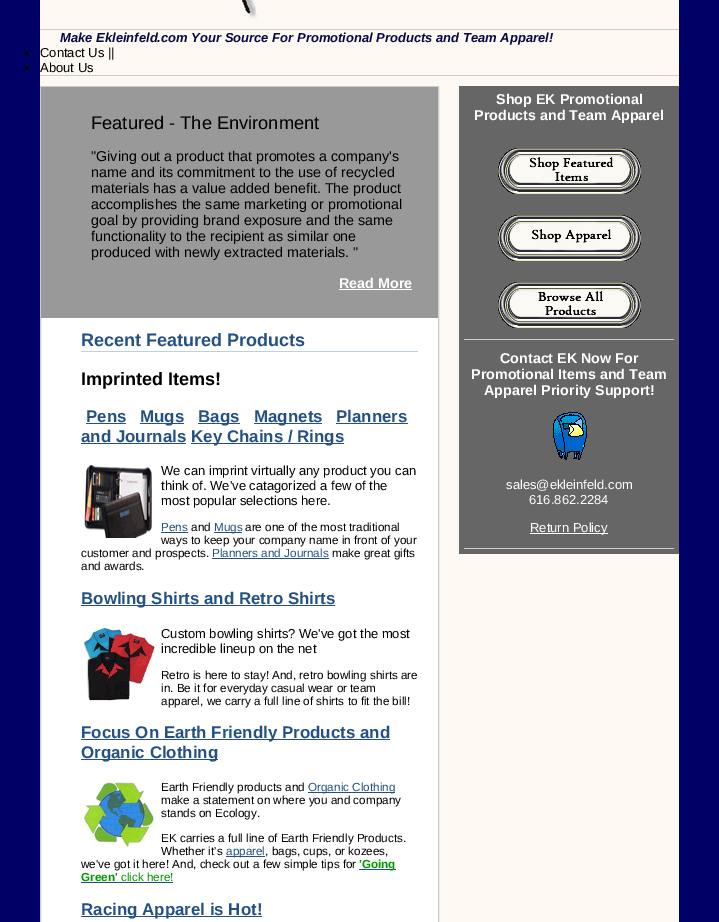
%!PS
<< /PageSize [719 922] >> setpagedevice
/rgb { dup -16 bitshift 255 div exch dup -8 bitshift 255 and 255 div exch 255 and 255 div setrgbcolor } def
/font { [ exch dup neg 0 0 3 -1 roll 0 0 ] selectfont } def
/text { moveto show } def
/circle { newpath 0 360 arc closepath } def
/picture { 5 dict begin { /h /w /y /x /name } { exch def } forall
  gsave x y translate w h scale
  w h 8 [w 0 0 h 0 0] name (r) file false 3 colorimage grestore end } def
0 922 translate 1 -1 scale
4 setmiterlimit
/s1 { /LiberationSans-BoldItalic 13 font 16#050845 rgb } def
/s2 { /LiberationSans-Regular 13 font 16#000000 rgb } def
/s3 { /LiberationSans-Regular 18.25 font 16#000000 rgb } def
/s4 { /LiberationSans-Regular 14.3 font 16#000000 rgb } def
/s5 { /LiberationSans-Bold 14.3 font 16#FFFFFF rgb } def
/s6 { /LiberationSans-Bold 18 font 16#245185 rgb } def
/s7 { /LiberationSans-Bold 18 font 16#000000 rgb } def
/s8 { /LiberationSans-Bold 16.9 font 16#245185 rgb } def
/s9 { /LiberationSans-Regular 11.7 font 16#245185 rgb } def
/s10 { /LiberationSans-Regular 11.7 font 16#000000 rgb } def
/s11 { /LiberationSans-Bold 11.7 font 16#009900 rgb } def
/s12 { /LiberationSans-Regular 11.7 font 16#009900 rgb } def
/s13 { /LiberationSans-Regular 13 font 16#FFFFFF rgb } def
16#000066 rgb
0 0 719 922 rectfill
16#FDF8F2 rgb
40 0 639 922 rectfill
(pic1.raw) 241 0 18 19 picture
16#CCCCCC rgb
40 29 639 1 rectfill
40 75 639 1 rectfill
s1
(Make Ekleinfeld.com Your Source For Promotional Products and Team Apparel!) 60 42 text
16#000000 rgb
27 53 2 circle fill
s2
(Contact Us ||) 40 57 text
27 68 2 circle fill
(About Us) 40 72 text
16#FFFFFF rgb
41 318 397 604 rectfill
16#CCCCCC rgb
40.5 86.5 398 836 rectstroke
16#999999 rgb
41 87 397 231 rectfill
s3
(Featured - The Environment) 91 129 text
s4
("Giving out a product that promotes a company's) 91 161 text
(name and its commitment to the use of recycled) 91 177 text
(materials has a value added benefit. The product) 91 193 text
(accomplishes the same marketing or promotional) 91 209 text
(goal by providing brand exposure and the same) 91 225 text
(functionality to the recipient as similar one) 91 241 text
(produced with newly extracted materials. ") 91 257 text
s5
(Read More) 339 288 text
339 289 73 1 rectfill
16#B9D2E3 rgb
81 351 337 1 rectfill
s6
(Recent Featured Products) 81 346 text
s7
(Imprinted Items!) 81 385 text
s8
(Pens) 86 422 text
86 423 40 1 rectfill
140 423 44 1 rectfill
(Mugs) 140 422 text
198 423 42 1 rectfill
(Bags) 198 422 text
254 423 68 1 rectfill
(Magnets) 254 422 text
(Planners) 336 422 text
336 423 72 1 rectfill
(and Journals) 81 442 text
81 443 105 1 rectfill
191 443 153 1 rectfill
(Key Chains / Rings) 191 442 text
(pic2.raw) 84 464 68 74 picture
s2
(We can imprint virtually any product you can) 161 475 text
(think of. We've catagorized a few of the) 161 490 text
(most popular selections here.) 161 505 text
s9
(Pens) 161 531 text
161 532 27 1 rectfill
s10
(and) 191 531 text
16#245185 rgb
214 532 28 1 rectfill
(Mugs) 214 531 text
s10
(are one of the most traditional) 245 531 text
(ways to keep your company name in front of your) 161 544 text
(customer and prospects.) 81 557 text
s9
(Planners and Journals) 212 557 text
212 558 117 1 rectfill
s10
(make great gifts) 332 557 text
(and awards.) 81 570 text
16#245185 rgb
81 605 254 1 rectfill
s8
(Bowling Shirts and Retro Shirts) 81 604 text
(pic3.raw) 83 628 72 73 picture
s2
(Custom bowling shirts? We've got the most) 161 638 text
(incredible lineup on the net) 161 653 text
s10
(Retro is here to stay! And, retro bowling shirts are) 161 679 text
(in. Be it for everyday casual wear or team) 161 692 text
(apparel, we carry a full line of shirts to fit the bill!) 161 705 text
16#245185 rgb
81 739 309 1 rectfill
s8
(Focus On Earth Friendly Products and) 81 738 text
81 759 137 1 rectfill
(Organic Clothing) 81 758 text
(pic4.raw) 81 780 75 70 picture
s10
(Earth Friendly products and) 161 791 text
16#245185 rgb
308 792 87 1 rectfill
(Organic Clothing) 308 791 text
s10
(make a statement on where you and company) 161 804 text
(stands on Ecology.) 161 817 text
(EK carries a full line of Earth Friendly Products.) 161 842 text
(Whether it's) 161 855 text
16#245185 rgb
226 856 39 1 rectfill
(apparel) 226 855 text
s10
(, bags, cups, or kozees,) 265 855 text
(we've got it here! And, check out a few simple tips for) 81 868 text
16#245185 rgb
359 869 37 1 rectfill
s11
('Going) 359 868 text
(Green') 81 881 text
16#245185 rgb
81 882 92 1 rectfill
s12
(click here!) 121 881 text
16#245185 rgb
81 916 181 1 rectfill
s8
(Racing Apparel is Hot!) 81 915 text
16#666666 rgb
459 86 220 468 rectfill
16#CCCCCC rgb
464 339 210 1 rectfill
s5
(Shop EK Promotional) 496 104 text
(Products and Team Apparel) 474 120 text
(pic5.raw) 498 148 143 46 picture
(pic6.raw) 498 215 143 46 picture
(pic7.raw) 498 282 143 46 picture
16#CCCCCC rgb
464 548 210 1 rectfill
s5
(Contact EK Now For) 500 363 text
(Promotional Items and Team) 471 379 text
(Apparel Priority Support!) 484 395 text
(pic8.raw) 553 412 34 48 picture
s13
(sales@ekleinfeld.com) 506 489 text
(616.862.2284) 529 504 text
530 533 78 1 rectfill
(Return Policy) 530 532 text
showpage
